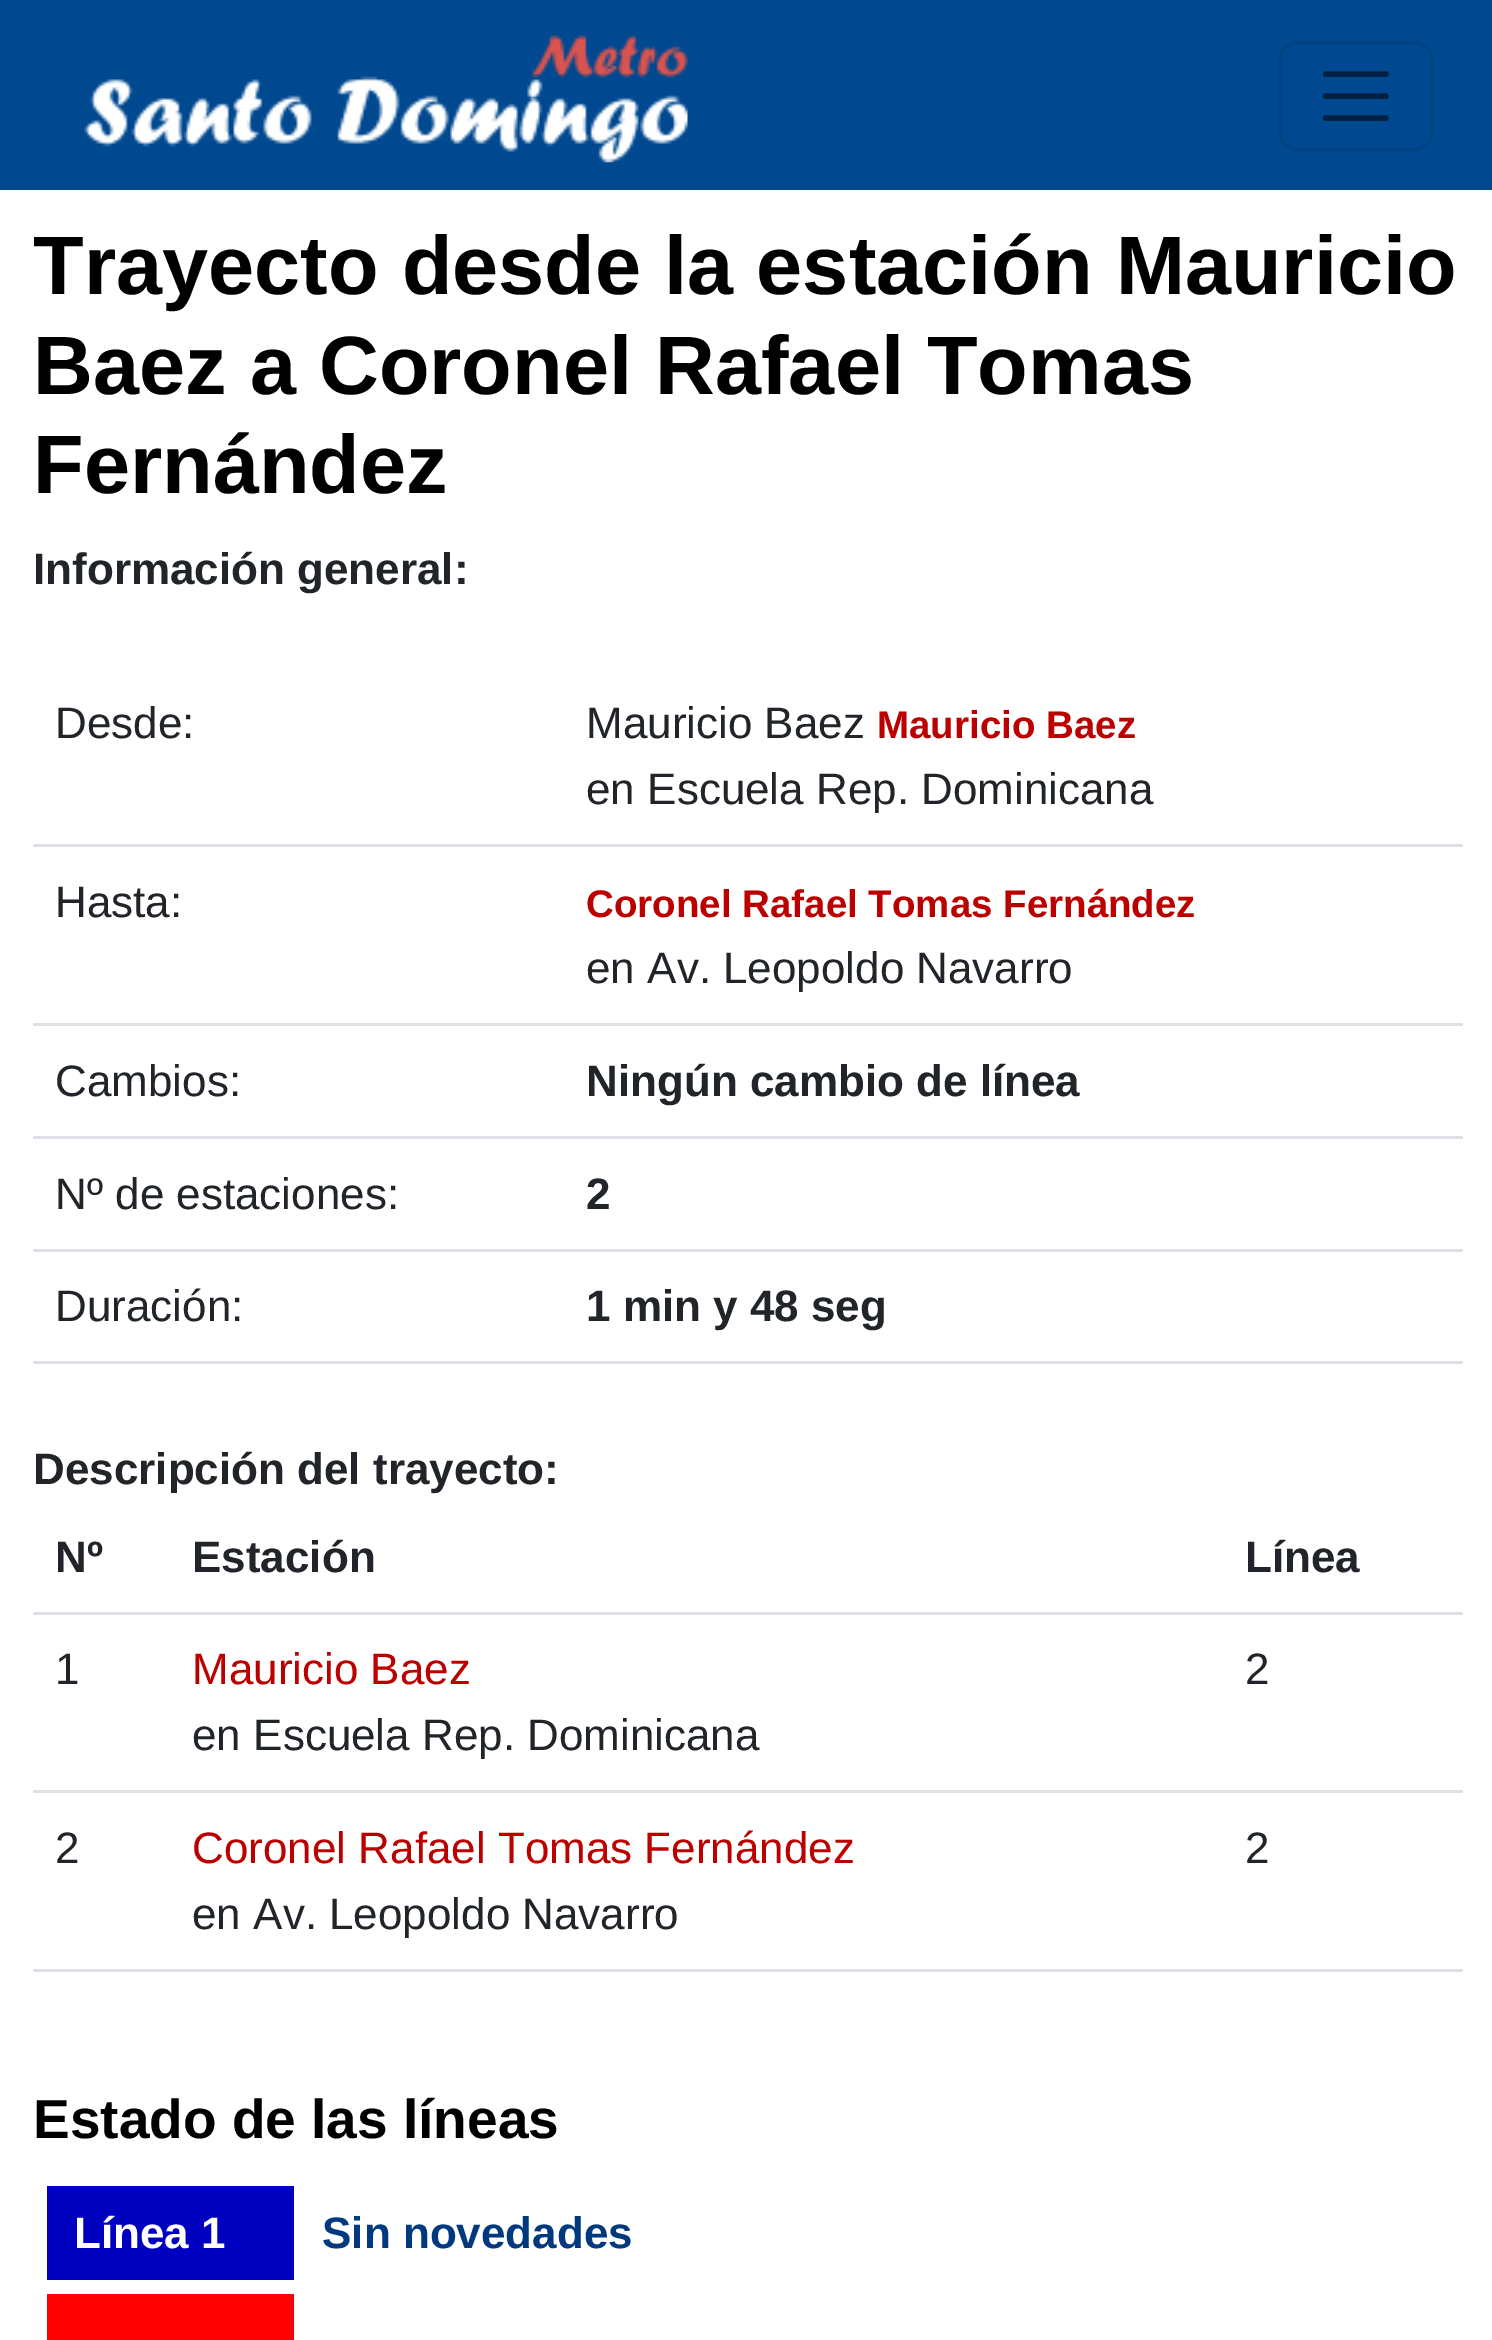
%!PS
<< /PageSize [1492 2340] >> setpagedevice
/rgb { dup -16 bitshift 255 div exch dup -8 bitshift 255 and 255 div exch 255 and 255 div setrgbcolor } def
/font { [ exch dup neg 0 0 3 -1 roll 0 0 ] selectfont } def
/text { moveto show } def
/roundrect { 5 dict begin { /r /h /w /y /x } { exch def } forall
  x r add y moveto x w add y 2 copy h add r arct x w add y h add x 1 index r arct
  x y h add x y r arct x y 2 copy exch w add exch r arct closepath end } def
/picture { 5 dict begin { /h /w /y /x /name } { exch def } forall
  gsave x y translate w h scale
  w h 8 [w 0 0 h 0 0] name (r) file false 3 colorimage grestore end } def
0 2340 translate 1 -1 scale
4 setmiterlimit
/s1 { /LiberationSans-Bold 82.9 font 16#000000 rgb } def
/s2 { /LiberationSans-Bold 44 font 16#212529 rgb } def
/s3 { /LiberationSans-Regular 44 font 16#212529 rgb } def
/s4 { /LiberationSans-Bold 38.5 font 16#BC0000 rgb } def
/s5 { /LiberationSans-Regular 44 font 16#BC0000 rgb } def
/s6 { /LiberationSans-Bold 55 font 16#000000 rgb } def
/s7 { /LiberationSans-Bold 44 font 16#FFFFFF rgb } def
/s8 { /LiberationSans-Bold 44 font 16#00397D rgb } def
16#FFFFFF rgb
0 0 1492 2340 rectfill
16#004990 rgb
0 0 1492 190 rectfill
(pic1.raw) 84 35 604 128 picture
16#004282 rgb
3 setlinewidth
1280.5 42.5 151 107 15.5 roundrect stroke
16#002141 rgb
5.5 setlinewidth
1 setlinecap
1325.5 74 moveto 1386 74 lineto 1325.5 96 moveto 1386 96 lineto 1325.5 118 moveto 1386 118 lineto stroke
s1
(Trayecto desde la estación Mauricio) 33 294 text
(Baez a Coronel Rafael Tomas) 33 394 text
(Fernández) 33 493 text
s2
(Información general:) 33 584 text
s3
(Desde:) 55 738 text
16#DEE2E6 rgb
33 844 1430 3 rectfill
s3
(Mauricio Baez) 586 738 text
s4
(Mauricio Baez) 877 738 text
s3
(en Escuela Rep. Dominicana) 586 804 text
(Hasta:) 55 917 text
16#DEE2E6 rgb
33 1023 1430 3 rectfill
s4
(Coronel Rafael Tomas Fernández) 586 917 text
s3
(en Av. Leopoldo Navarro) 586 983 text
(Cambios:) 55 1096 text
16#DEE2E6 rgb
33 1136 1430 3 rectfill
s2
(Ningún cambio de línea) 586 1096 text
s3
(Nº de estaciones:) 55 1209 text
16#DEE2E6 rgb
33 1249 1430 3 rectfill
s2
(2) 586 1209 text
s3
(Duración:) 55 1321 text
16#DEE2E6 rgb
33 1361 1430 3 rectfill
s2
(1 min y 48 seg) 586 1321 text
(Descripción del trayecto:) 33 1484 text
(Nº) 55 1572 text
(Estación) 192 1572 text
16#DEE2E6 rgb
33 1612 1430 3 rectfill
s2
(Línea) 1245 1572 text
s3
(1) 55 1684 text
s5
(Mauricio Baez) 192 1684 text
s3
(en Escuela Rep. Dominicana) 192 1750 text
16#DEE2E6 rgb
33 1790 1430 3 rectfill
s3
(2) 1245 1684 text
(2) 55 1863 text
s5
(Coronel Rafael Tomas Fernández) 192 1863 text
s3
(en Av. Leopoldo Navarro) 192 1929 text
16#DEE2E6 rgb
33 1969 1430 3 rectfill
s3
(2) 1245 1863 text
s6
(Estado de las líneas) 33 2138 text
16#0001C0 rgb
47 2186 247 94 rectfill
s7
(Línea 1) 74 2248 text
s8
(Sin novedades) 322 2248 text
16#FE0100 rgb
47 2294 247 46 rectfill
showpage
